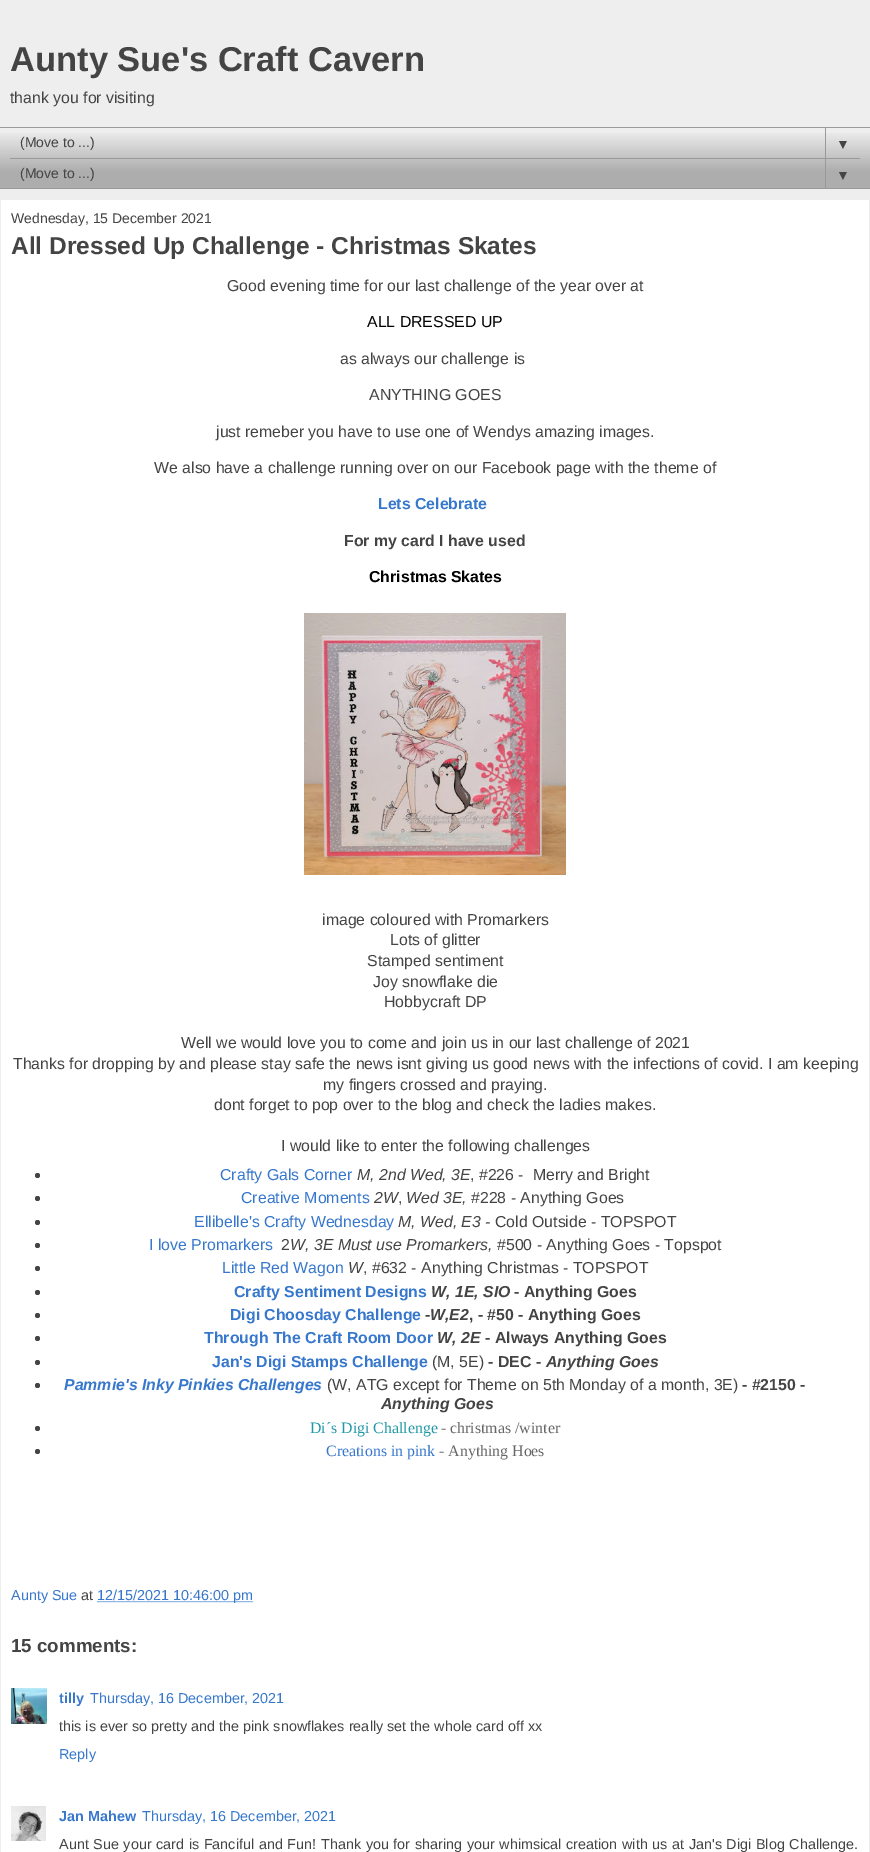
%!PS
<< /PageSize [870 1852] >> setpagedevice
/rgb { dup -16 bitshift 255 div exch dup -8 bitshift 255 and 255 div exch 255 and 255 div setrgbcolor } def
/font { [ exch dup neg 0 0 3 -1 roll 0 0 ] selectfont } def
/text { moveto show } def
/circle { newpath 0 360 arc closepath } def
/picture { 5 dict begin { /h /w /y /x /name } { exch def } forall
  gsave x y translate w h scale
  w h 8 [w 0 0 h 0 0] name (r) file false 3 colorimage grestore end } def
0 1852 translate 1 -1 scale
4 setmiterlimit
/s1 { /LiberationSans-Bold 34.5 font 16#444444 rgb } def
/s2 { /LiberationSans-Regular 15.85 font 16#444444 rgb } def
/s3 { /LiberationSans-Regular 14 font 16#444444 rgb } def
/s4 { /LiberationSans-Bold 24.5 font 16#444444 rgb } def
/s5 { /LiberationSans-Regular 15.85 font 16#000000 rgb } def
/s6 { /LiberationSans-Bold 15.85 font 16#3778CD rgb } def
/s7 { /LiberationSans-Bold 15.85 font 16#444444 rgb } def
/s8 { /LiberationSans-Bold 15.85 font 16#000000 rgb } def
/s9 { /LiberationSans-Regular 15.85 font 16#3778CD rgb } def
/s10 { /LiberationSans-Italic 15.85 font 16#444444 rgb } def
/s11 { /LiberationSans-BoldItalic 15.85 font 16#444444 rgb } def
/s12 { /LiberationSans-BoldItalic 15.85 font 16#3778CD rgb } def
/s13 { /LiberationSerif-Regular 15.85 font 16#2198A6 rgb } def
/s14 { /LiberationSerif-Regular 15.85 font 16#666666 rgb } def
/s15 { /LiberationSerif-Regular 15.85 font 16#3778CD rgb } def
/s16 { /LiberationSans-Regular 14.4 font 16#3778CD rgb } def
/s17 { /LiberationSans-Regular 14.4 font 16#444444 rgb } def
/s18 { /LiberationSans-Bold 18.75 font 16#444444 rgb } def
/s19 { /LiberationSans-Bold 14.4 font 16#3778CD rgb } def
16#EEEEEE rgb
0 0 870 1852 rectfill
s1
(Aunty Sue's Craft Cavern) 10 71 text
s2
(thank you for visiting) 10 103 text
(pic1.raw) 0 133 870 55 picture
16#999999 rgb
0 127 870 1 rectfill
s3
(\(Move to ...\)) 20 147 text
16#999999 rgb
825 127 1 31 rectfill
s3
(▼) 836 149 text
16#999999 rgb
10 158 850 1 rectfill
s3
(\(Move to ...\)) 20 178 text
16#999999 rgb
825 158 1 31 rectfill
s3
(▼) 836 180 text
16#999999 rgb
0 188 870 1 rectfill
16#FFFFFF rgb
1 200 868 1652 rectfill
s3
(Wednesday, 15 December 2021) 11 223 text
s4
(All Dressed Up Challenge - Christmas Skates) 11 254 text
s2
(Good evening time for our last challenge of the year over at) 227 291 text
s5
(ALL DRESSED UP) 367 327 text
s2
(as always our challenge is) 340 364 text
(ANYTHING GOES) 369 400 text
(just remeber you have to use one of Wendys amazing images.) 216 437 text
(We also have a challenge running over on our Facebook page with the theme of) 154 473 text
s6
(Lets Celebrate) 378 509 text
s7
(For my card I have used) 344 546 text
s8
(Christmas Skates) 369 582 text
(pic2.raw) 304 613 262 262 picture
s2
(image coloured with Promarkers) 322 925 text
(Lots of glitter) 390 945 text
(Stamped sentiment) 367 966 text
(Joy snowflake die) 373 987 text
(Hobbycraft DP) 384 1007 text
(Well we would love you to come and join us in our last challenge of 2021) 181 1048 text
(Thanks for dropping by and please stay safe the news isnt giving us good news with the infections of covid. I am keeping) 13 1069 text
(my fingers crossed and praying.) 323 1090 text
(dont forget to pop over to the blog and check the ladies makes.) 214 1110 text
(I would like to enter the following challenges) 281 1151 text
37.5 1175.5 2.5 circle fill
s9
(Crafty Gals Corner) 220 1180 text
s10
(M, 2nd Wed, 3E) 357 1180 text
s2
(, #226 -  Merry and Bright) 470 1180 text
37.5 1198.5 2.5 circle fill
s9
(Creative Moments) 241 1203 text
s10
(2W) 374 1203 text
(Wed 3E,) 406 1203 text
s2
(#228 - Anything Goes) 471 1203 text
(,) 398 1203 text
37.5 1222.5 2.5 circle fill
s9
(Ellibelle's Crafty Wednesday) 194 1227 text
s10
(M, Wed, E3 -) 398 1227 text
s2
(Cold Outside - TOPSPOT) 495 1227 text
37.5 1245.5 2.5 circle fill
s9
(I love Promarkers) 149 1250 text
s2
(2) 281 1250 text
s10
(W, 3E Must use Promarkers,) 290 1250 text
s2
(#500 - Anything Goes - Topspot) 497 1250 text
37.5 1268.5 2.5 circle fill
s9
(Little Red Wagon) 222 1273 text
s10
(W) 348 1273 text
s2
(, #632 - Anything Christmas - TOPSPOT) 363 1273 text
37.5 1292.5 2.5 circle fill
s6
(Crafty Sentiment Designs) 234 1297 text
s11
(W, 1E, SIO) 431 1297 text
s7
(- Anything Goes) 514 1297 text
37.5 1315.5 2.5 circle fill
s6
(Digi Choosday Challenge) 230 1320 text
s7
(-) 425 1320 text
s11
(W,E2) 430 1320 text
s7
(, - #50 - Anything Goes) 469 1320 text
37.5 1338.5 2.5 circle fill
s6
(Through The Craft Room Door) 204 1343 text
s11
(W, 2E) 437 1343 text
s7
(- Always Anything Goes) 485 1343 text
37.5 1362.5 2.5 circle fill
s6
(Jan's Digi Stamps Challenge) 212 1367 text
s2
(\(M, 5E\)) 432 1367 text
s7
(- DEC -) 488 1367 text
s11
(Anything Goes) 546 1367 text
37.5 1385.5 2.5 circle fill
s12
(Pammie's Inky Pinkies Challenges) 64 1390 text
s2
(\(W, ATG except for Theme on 5th Monday of a month, 3E\)) 327 1390 text
s7
(- #2150 -) 742 1390 text
s11
(Anything Goes) 381 1409 text
37.5 1428.5 2.5 circle fill
s13
(Di´s Digi Challenge) 310 1433 text
s14
(- christmas /winter) 441 1433 text
16#444444 rgb
37.5 1451.5 2.5 circle fill
s15
(Creations in pink) 326 1456 text
s14
(- Anything Hoes) 439 1456 text
s16
(Aunty Sue) 11 1600 text
s17
(at) 81 1600 text
16#3778CD rgb
[1 1] 0 setdash
97.5 1601.5 moveto 253.5 1601.5 lineto stroke
(12/15/2021 10:46:00 pm) 97 1600 text
s18
(15 comments:) 11 1652 text
(pic3.raw) 11 1688 36 36 picture
s19
(tilly) 59 1703 text
s16
(Thursday, 16 December, 2021) 90 1703 text
s17
(this is ever so pretty and the pink snowflakes really set the whole card off xx) 59 1731 text
s16
(Reply) 59 1759 text
(pic4.raw) 11 1806 35 35 picture
s19
(Jan Mahew) 59 1821 text
s16
(Thursday, 16 December, 2021) 142 1821 text
16#444444 rgb
59 1849 moveto 0.6 0 32 (Aunt Sue your card is Fanciful and Fun!) widthshow
321 1849 moveto 0.6 0 32 (Thank you for sharing your whimsical creation with us at Jan's Digi Blog Challenge.) widthshow
showpage
